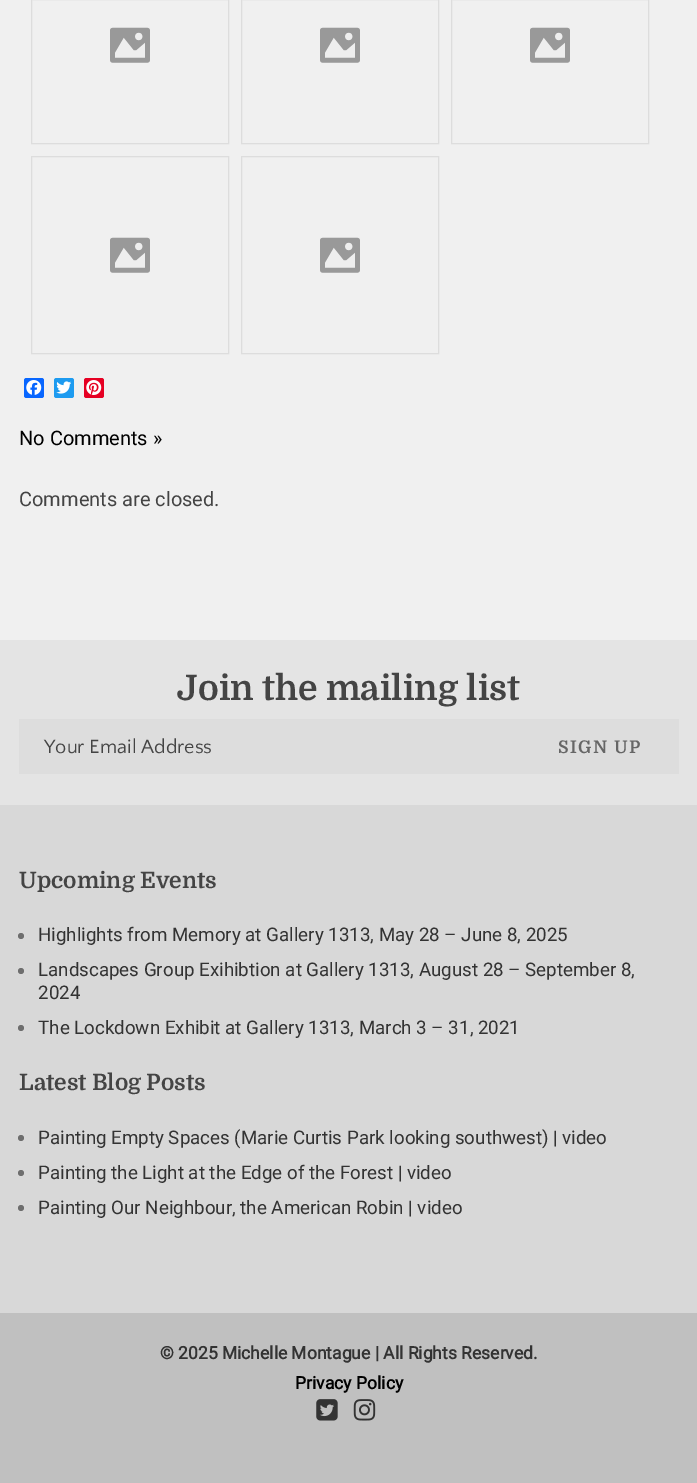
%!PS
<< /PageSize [697 1483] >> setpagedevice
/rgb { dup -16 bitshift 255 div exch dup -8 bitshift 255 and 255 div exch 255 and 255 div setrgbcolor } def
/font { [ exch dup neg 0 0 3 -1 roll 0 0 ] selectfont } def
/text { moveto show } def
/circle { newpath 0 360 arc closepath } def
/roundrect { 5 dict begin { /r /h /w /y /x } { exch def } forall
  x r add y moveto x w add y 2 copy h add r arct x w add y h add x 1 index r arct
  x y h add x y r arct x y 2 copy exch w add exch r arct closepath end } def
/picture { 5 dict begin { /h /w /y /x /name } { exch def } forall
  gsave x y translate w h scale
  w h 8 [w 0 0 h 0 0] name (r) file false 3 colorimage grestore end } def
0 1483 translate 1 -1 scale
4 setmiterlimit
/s1 { /Roboto-Regular 20 font 16#000000 rgb } def
/s2 { /Roboto-Regular 20 font 16#444444 rgb } def
/s3 { /Domine-Bold 35 font 16#444444 rgb } def
/s4 { /QuattrocentoSans-Regular 20 font 16#444444 rgb } def
/s5 { /Domine-Bold 22.5 font 16#444444 rgb } def
/s6 { /Roboto-Regular 18.75 font 16#333333 rgb } def
/s7 { /Roboto-Bold 17.5 font 16#333333 rgb } def
/s8 { /Roboto-Bold 17.5 font 16#000000 rgb } def
16#F0F0F0 rgb
0 0 697 1483 rectfill
16#DDDDDD rgb
31.5 -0.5 197 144 rectstroke
(pic1.raw) 110 27 40 36 picture
241.5 -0.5 197 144 rectstroke
(pic1.raw) 320 27 40 36 picture
451.5 -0.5 197 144 rectstroke
(pic1.raw) 530 27 40 36 picture
31.5 156.5 197 197 rectstroke
(pic1.raw) 110 237 40 36 picture
241.5 156.5 197 197 rectstroke
(pic1.raw) 320 237 40 36 picture
16#0866FF rgb
24 378 20 20 2.5 roundrect fill
(pic2.raw) 26 380 16 15 picture
16#1D9BF0 rgb
54 378 20 20 2.5 roundrect fill
(pic3.raw) 56 381 15 13 picture
16#E60023 rgb
84 378 20 20 2.5 roundrect fill
(pic4.raw) 86 380 16 15 picture
s1
(No Comments ») 19 445 text
s2
(Comments are closed.) 19 506 text
16#E4E4E4 rgb
0 640 697 165 rectfill
s3
(Join the mailing list) 177 700 text
16#DDDDDD rgb
19 719 660 55 rectfill
s4
(Your Email Address) 44 753 text
/Domine-Bold 17.5 font
16#666666 rgb
558 753 moveto 1.25 0 (SIGN UP) ashow
16#D8D8D8 rgb
0 805 697 508 rectfill
s5
(Upcoming Events) 19 888 text
16#6E6E6E rgb
21 936 3 circle fill
s6
(Highlights from Memory at Gallery 1313, May 28 – June 8, 2025) 38 941 text
16#6E6E6E rgb
21 971 3 circle fill
s6
(Landscapes Group Exihibtion at Gallery 1313, August 28 – September 8,) 38 976 text
(2024) 38 999 text
16#6E6E6E rgb
21 1028 3 circle fill
s6
(The Lockdown Exhibit at Gallery 1313, March 3 – 31, 2021) 38 1034 text
s5
(Latest Blog Posts) 19 1090 text
16#6E6E6E rgb
21 1138 3 circle fill
s6
(Painting Empty Spaces \(Marie Curtis Park looking southwest\) | video) 38 1144 text
16#6E6E6E rgb
21 1173 3 circle fill
s6
(Painting the Light at the Edge of the Forest | video) 38 1179 text
16#6E6E6E rgb
21 1208 3 circle fill
s6
(Painting Our Neighbour, the American Robin | video) 38 1214 text
16#C0C0C0 rgb
0 1313 697 170 rectfill
s7
(© 2025 Michelle Montague | All Rights Reserved.) 160 1359 text
s8
(Privacy Policy) 295 1389 text
(pic5.raw) 316 1399 22 22 picture
(pic6.raw) 353 1399 23 22 picture
showpage
